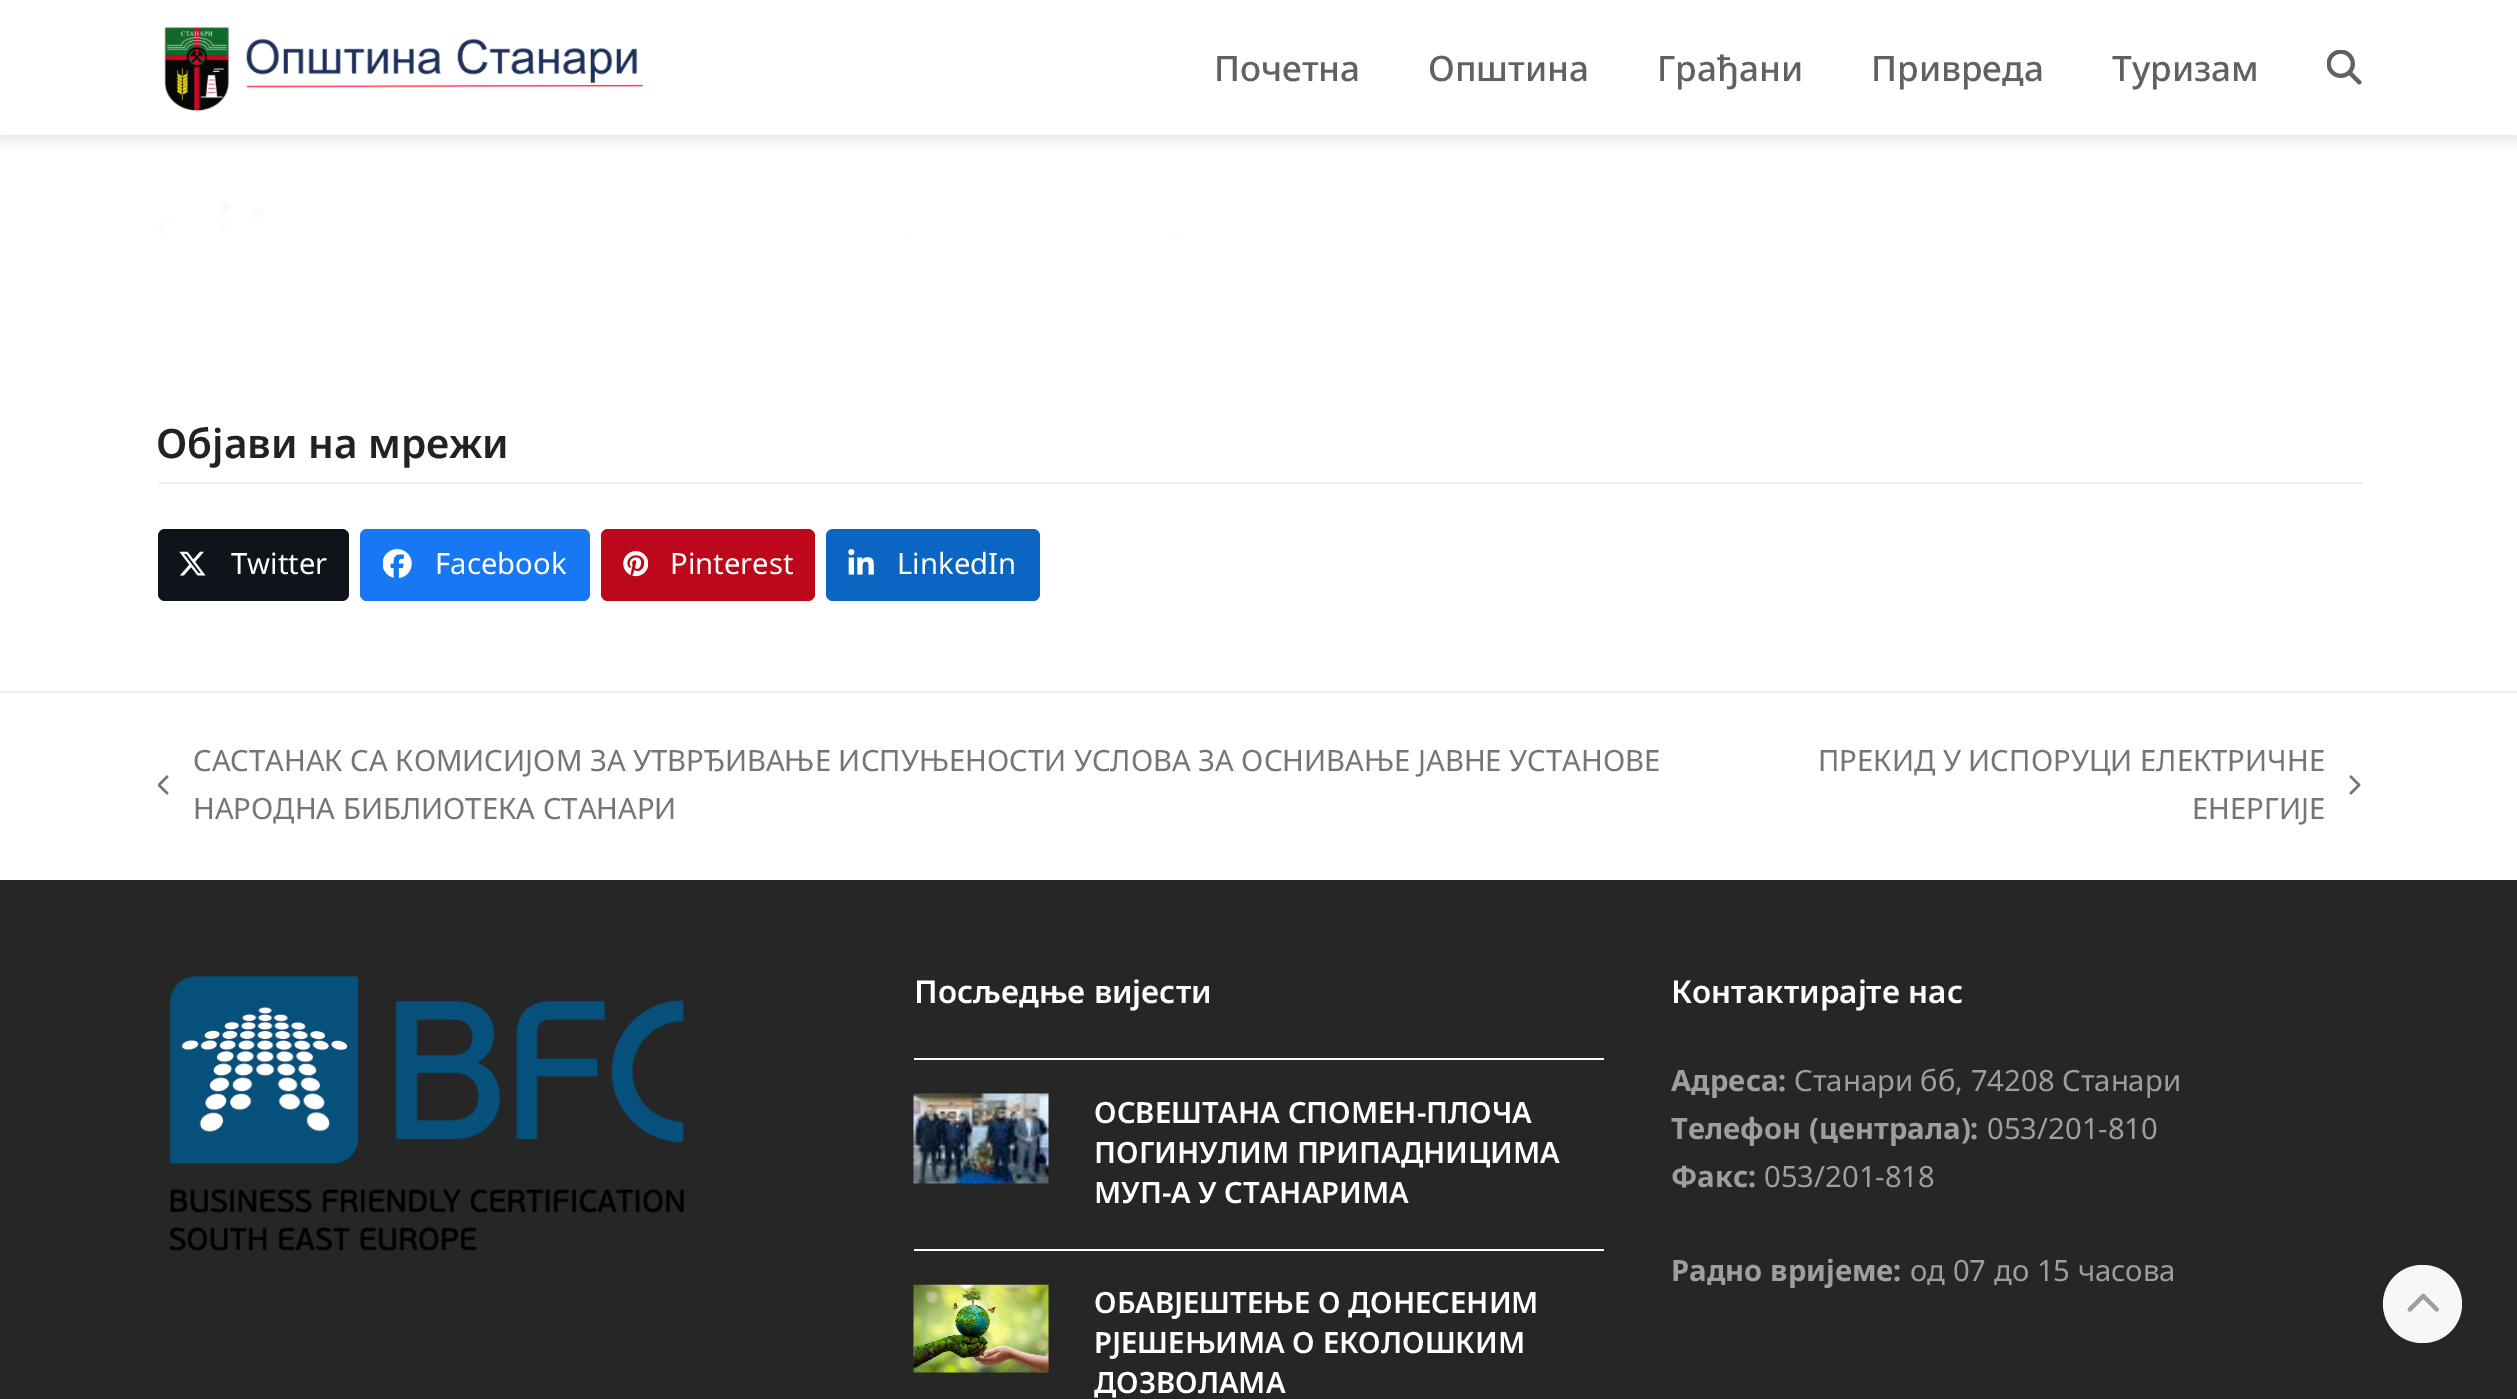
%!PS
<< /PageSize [2517 1399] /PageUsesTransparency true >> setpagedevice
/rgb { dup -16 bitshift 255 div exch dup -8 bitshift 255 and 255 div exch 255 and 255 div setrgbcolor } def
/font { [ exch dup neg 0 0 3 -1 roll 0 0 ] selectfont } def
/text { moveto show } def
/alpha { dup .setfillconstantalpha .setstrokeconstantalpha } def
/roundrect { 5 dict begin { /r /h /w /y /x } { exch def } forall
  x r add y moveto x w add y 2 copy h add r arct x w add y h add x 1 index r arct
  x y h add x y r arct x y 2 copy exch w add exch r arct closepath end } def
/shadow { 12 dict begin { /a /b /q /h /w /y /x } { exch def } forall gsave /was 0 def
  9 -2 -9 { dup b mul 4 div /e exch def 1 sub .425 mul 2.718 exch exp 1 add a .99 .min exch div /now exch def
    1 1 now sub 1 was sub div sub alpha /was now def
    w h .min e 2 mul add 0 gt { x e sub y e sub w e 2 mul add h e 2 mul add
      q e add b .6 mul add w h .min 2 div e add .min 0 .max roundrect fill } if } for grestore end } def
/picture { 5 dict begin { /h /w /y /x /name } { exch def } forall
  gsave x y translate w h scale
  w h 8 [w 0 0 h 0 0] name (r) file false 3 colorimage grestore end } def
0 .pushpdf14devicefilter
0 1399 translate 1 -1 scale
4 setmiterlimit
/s1 { /NotoSans-Medium 35 font 16#616161 rgb } def
/s2 { /NotoSans-SemiBold 40.5 font 16#222222 rgb } def
/s3 { /NotoSans-Regular 29.25 font 16#FFFFFF rgb } def
/s4 { /NotoSans-Regular 29.25 font 16#757575 rgb } def
/s5 { /NotoSans-SemiBold 31.5 font 16#FFFFFF rgb } def
/s6 { /NotoSans-SemiBold 29.25 font 16#FFFFFF rgb } def
/s7 { /NotoSans-Bold 29.25 font 16#9E9E9E rgb } def
/s8 { /NotoSans-Regular 29.25 font 16#9E9E9E rgb } def
16#FFFFFF rgb
0 0 2517 1399 rectfill
(pic3.raw) 157 135 1527 103 picture
16#000000 rgb
0 5 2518 135 0 5.5 0.1 shadow
16#FFFFFF rgb
0 0 2517 135 rectfill
(pic1.raw) 164 27 480 85 picture
s1
(Почетна) 1214 81 text
(Општина) 1428 81 text
(Грађани) 1657 81 text
(Привреда) 1871 81 text
(Туризам) 2112 81 text
(pic2.raw) 2327 50 35 35 picture
16#EEEEEE rgb
158 482 2205 2 rectfill
s2
(Објави на мрежи) 156 458 text
16#0F141A rgb
158 529 191 72 7 roundrect fill
(pic4.raw) 179 551 27 25 picture
s3
(Twitter) 231 574 text
16#1877F2 rgb
360 529 230 72 7 roundrect fill
(pic5.raw) 383 549 29 29 picture
s3
(Facebook) 435 574 text
16#BD081C rgb
601 529 214 72 7 roundrect fill
(pic6.raw) 623 551 25 26 picture
s3
(Pinterest) 670 574 text
16#0A66C2 rgb
826 529 214 72 7 roundrect fill
(pic7.raw) 848 549 26 26 picture
s3
(LinkedIn) 897 574 text
16#EEEEEE rgb
0 691 2517 2 rectfill
s4
(САСТАНАК СА КОМИСИЈОМ ЗА УТВРЂИВАЊЕ ИСПУЊЕНОСТИ УСЛОВА ЗА ОСНИВАЊЕ ЈАВНЕ УСТАНОВЕ) 193 771 text
(pic8.raw) 158 775 11 20 picture
(НАРОДНА БИБЛИОТЕКА СТАНАРИ) 193 819 text
(ПРЕКИД У ИСПОРУЦИ ЕЛЕКТРИЧНЕ) 1818 771 text
(pic9.raw) 2349 775 12 20 picture
(ЕНЕРГИЈЕ) 2192 819 text
16#262626 rgb
0 880 2517 519 rectfill
(pic10.raw) 169 975 515 276 picture
s5
(Посљедње вијести) 914 1003 text
914 1058 690 2 rectfill
914 1249 690 2 rectfill
(pic11.raw) 913 1093 136 91 picture
s6
(ОСВЕШТАНА СПОМЕН-ПЛОЧА) 1094 1123 text
(ПОГИНУЛИМ ПРИПАДНИЦИМА) 1094 1163 text
(МУП-А У СТАНАРИМА) 1094 1203 text
(pic12.raw) 913 1284 136 89 picture
(ОБАВЈЕШТЕЊЕ О ДОНЕСЕНИМ) 1094 1313 text
(РЈЕШЕЊИМА О ЕКОЛОШКИМ) 1094 1353 text
(ДОЗВОЛАМА) 1094 1393 text
s5
(Контактирајте нас) 1671 1003 text
s7
(Адреса:) 1671 1091 text
s8
(Станари бб, 74208 Станари) 1794 1091 text
s7
(Телефон \(централа\):) 1671 1139 text
s8
(053/201-810) 1987 1139 text
s7
(Факс:) 1671 1187 text
s8
(053/201-818) 1764 1187 text
s7
(Радно вријеме:) 1671 1281 text
s8
(од 07 до 15 часова) 1910 1281 text
16#F7F7F7 rgb
2383 1265 79 78 39 roundrect fill
(pic13.raw) 2407 1293 32 19 picture
.poppdf14devicefilter showpage
